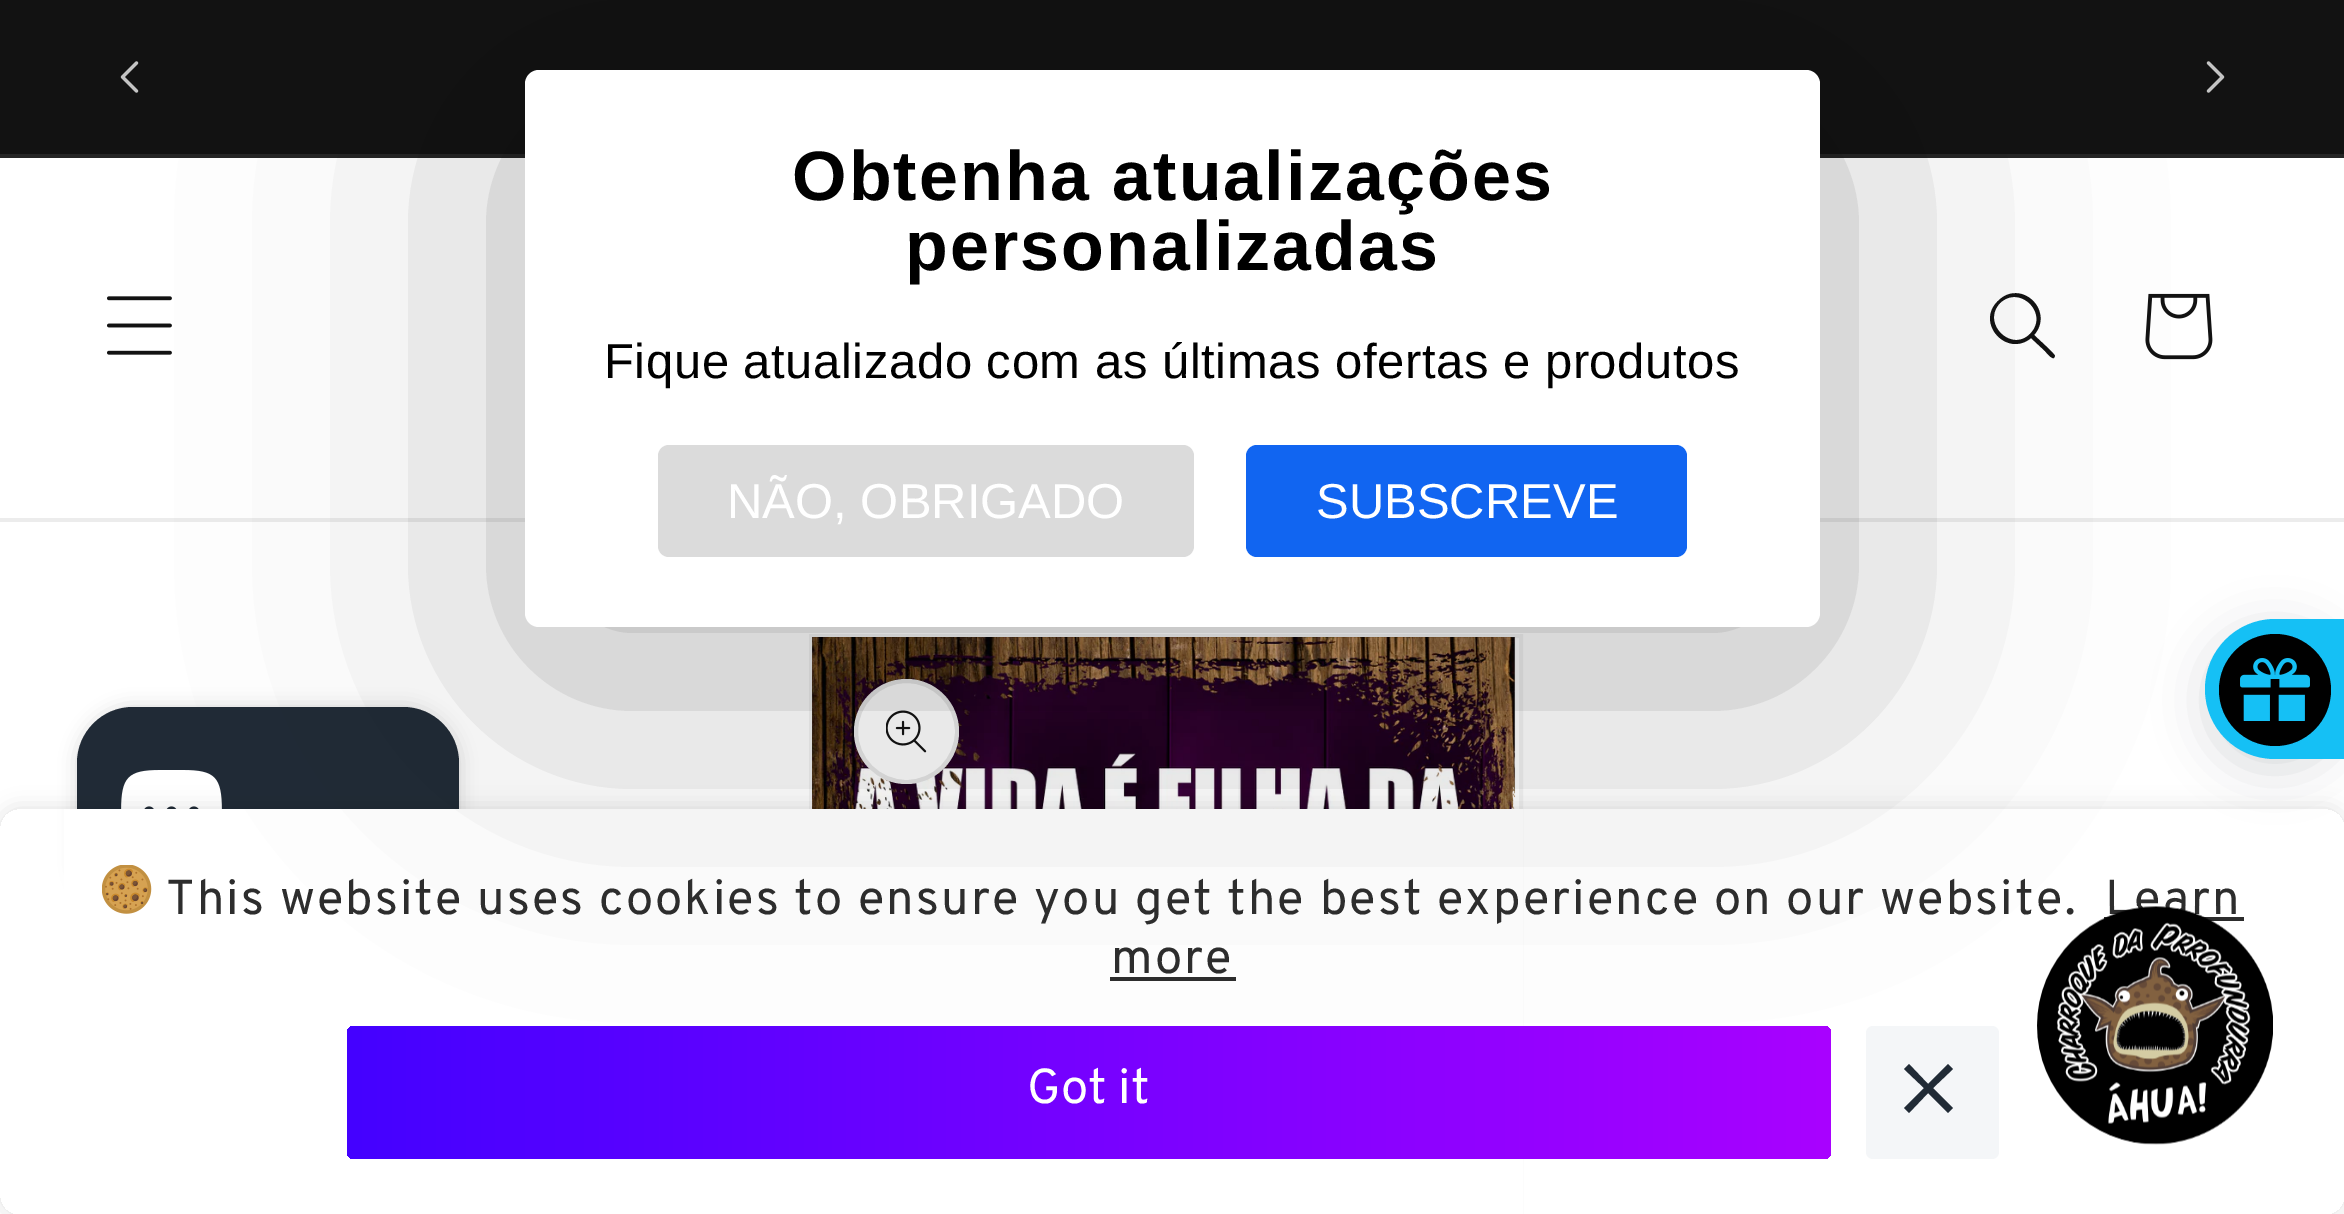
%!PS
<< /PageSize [2344 1214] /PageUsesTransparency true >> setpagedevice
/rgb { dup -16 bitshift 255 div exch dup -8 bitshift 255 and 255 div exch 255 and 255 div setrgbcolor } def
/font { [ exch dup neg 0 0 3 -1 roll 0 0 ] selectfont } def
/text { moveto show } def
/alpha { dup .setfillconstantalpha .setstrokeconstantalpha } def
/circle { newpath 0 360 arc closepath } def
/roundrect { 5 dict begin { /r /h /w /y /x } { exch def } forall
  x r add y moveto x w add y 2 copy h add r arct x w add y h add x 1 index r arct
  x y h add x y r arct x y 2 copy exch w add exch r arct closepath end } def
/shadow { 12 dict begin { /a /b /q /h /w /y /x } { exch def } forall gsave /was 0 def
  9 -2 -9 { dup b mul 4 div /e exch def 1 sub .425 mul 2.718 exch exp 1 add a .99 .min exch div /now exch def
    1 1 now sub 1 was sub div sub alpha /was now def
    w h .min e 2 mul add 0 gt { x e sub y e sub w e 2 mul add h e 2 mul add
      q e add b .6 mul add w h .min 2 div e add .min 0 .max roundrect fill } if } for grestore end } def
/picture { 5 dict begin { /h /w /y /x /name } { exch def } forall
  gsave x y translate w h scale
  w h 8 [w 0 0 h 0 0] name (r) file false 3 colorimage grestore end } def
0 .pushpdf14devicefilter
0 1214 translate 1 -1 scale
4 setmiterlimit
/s1 { /LiberationSans-Regular 49 font 16#FFFFFF rgb } def
/s2 { /Overpass-Regular 49 font 16#FFFFFF rgb } def
16#FFFFFF rgb
0 0 2344 1214 rectfill
16#121212 rgb
0 0 2344 154 rectfill
16#252525 rgb
0 154 2344 4 rectfill
(pic1.raw) 120 61 19 32 picture
(pic2.raw) 2206 61 19 32 picture
16#ECECEC rgb
0 518 2344 4 rectfill
(pic3.raw) 107 296 65 59 picture
16#121212 rgb
2030 334 moveto 2011 353 1981 323 2000 303 curveto 2020 284 2050 314 2030 334 curveto closepath 2031 338 moveto 2007 358 1975 323 1998 301 curveto 2021 278 2055 311 2034 335 curveto 2037 338 2055 354 2055 356 curveto 2054 358 lineto 2051 359 2046 352 2045 351 curveto closepath eofill
(pic4.raw) 2145 293 68 67 picture
16#000000 rgb
77 707 382 210 56 9 0.15 shadow
16#202A36 rgb
77 707 382 210 56 roundrect fill
(pic5.raw) 121 770 101 39 picture
16#F3F3F3 rgb
4 setlinewidth
811 636 710 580 rectstroke
(pic6.raw) 812 637 704 172 picture
16#FFFFFF rgb
906.5 731.5 52.5 circle fill
0.1 alpha
16#121212 rgb
906.5 731.5 50.5 circle stroke
1 alpha
(pic7.raw) 886 710 41 43 picture
16#112233 rgb
2205 630 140 140 70 24.5 0.16 shadow
16#15C0F5 rgb
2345 619 moveto 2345 759 lineto 2275 759 lineto 2236 759 2205 728 2205 689 curveto 2205 651 2236 619 2275 619 curveto closepath fill
16#000000 rgb
2275 690 56 circle fill
(pic8.raw) 2240 658 70 63 picture
16#FFFFFF rgb
64 809 1459 405 rectfill
gsave
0 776 moveto 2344 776 lineto 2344 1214 lineto 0 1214 lineto closepath 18 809 moveto 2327 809 lineto 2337 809 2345 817 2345 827 curveto 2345 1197 lineto 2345 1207 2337 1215 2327 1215 curveto 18 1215 lineto 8 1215 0 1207 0 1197 curveto 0 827 lineto 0 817 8 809 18 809 curveto closepath eoclip newpath
16#000000 rgb
0 809 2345 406 18 10.5 0.12 shadow
grestore
(pic9.raw) 102 865 50 49 picture
16#2D2D2D rgb
2104 917 140 4 rectfill
1110 977 126 4 rectfill
gsave 347 1026 1484 133 7 roundrect clip newpath
<< /ShadingType 2 /ColorSpace /DeviceRGB /Coords [347 1092 1831 1092] /Extend [true true] /Function << /FunctionType 2 /Domain [0 1] /C0 [0.267 0.004 1] /C1 [0.663 0.004 1] /N 1 >> >> shfill grestore
16#F4F6F8 rgb
1866 1026 133 133 7 roundrect fill
16#212B36 rgb
1953 1069 moveto 1948 1064 lineto 1928 1084 lineto 1909 1064 lineto 1904 1069 lineto 1924 1088 lineto 1904 1108 lineto 1909 1113 lineto 1928 1093 lineto 1948 1113 lineto 1953 1108 lineto 1933 1088 lineto closepath fill
16#000000 rgb
525 116 1295 556 14 156 0.3 shadow
16#FFFFFF rgb
525 70 1295 557 14 roundrect fill
/LiberationSans-Bold 70 font
16#000000 rgb
792 200 moveto 2.1 0 (Obtenha atualizações) ashow
905 270 moveto 2.1 0 (personalizadas) ashow
/LiberationSans-Regular 49 font
604 378 moveto 0.55 0 (Fique atualizado com as últimas ofertas e produtos) ashow
16#DBDBDB rgb
658 445 536 112 11 roundrect fill
s1
(NÃO, OBRIGADO) 727 518 text
16#1165F1 rgb
1246 445 441 112 11 roundrect fill
s1
(SUBSCREVE) 1316 518 text
/Overpass-Regular 49 font
16#2D2D2D rgb
166 914 moveto 2.1 0 (This website uses cookies to ensure you get the best experience on our website.) ashow
2105 914 moveto 2.1 0 (Learn) ashow
1111 973 moveto 2.1 0 (more) ashow
s2
(Got it) 1027 1103 text
(pic10.raw) 2037 906 236 239 picture
.poppdf14devicefilter showpage
